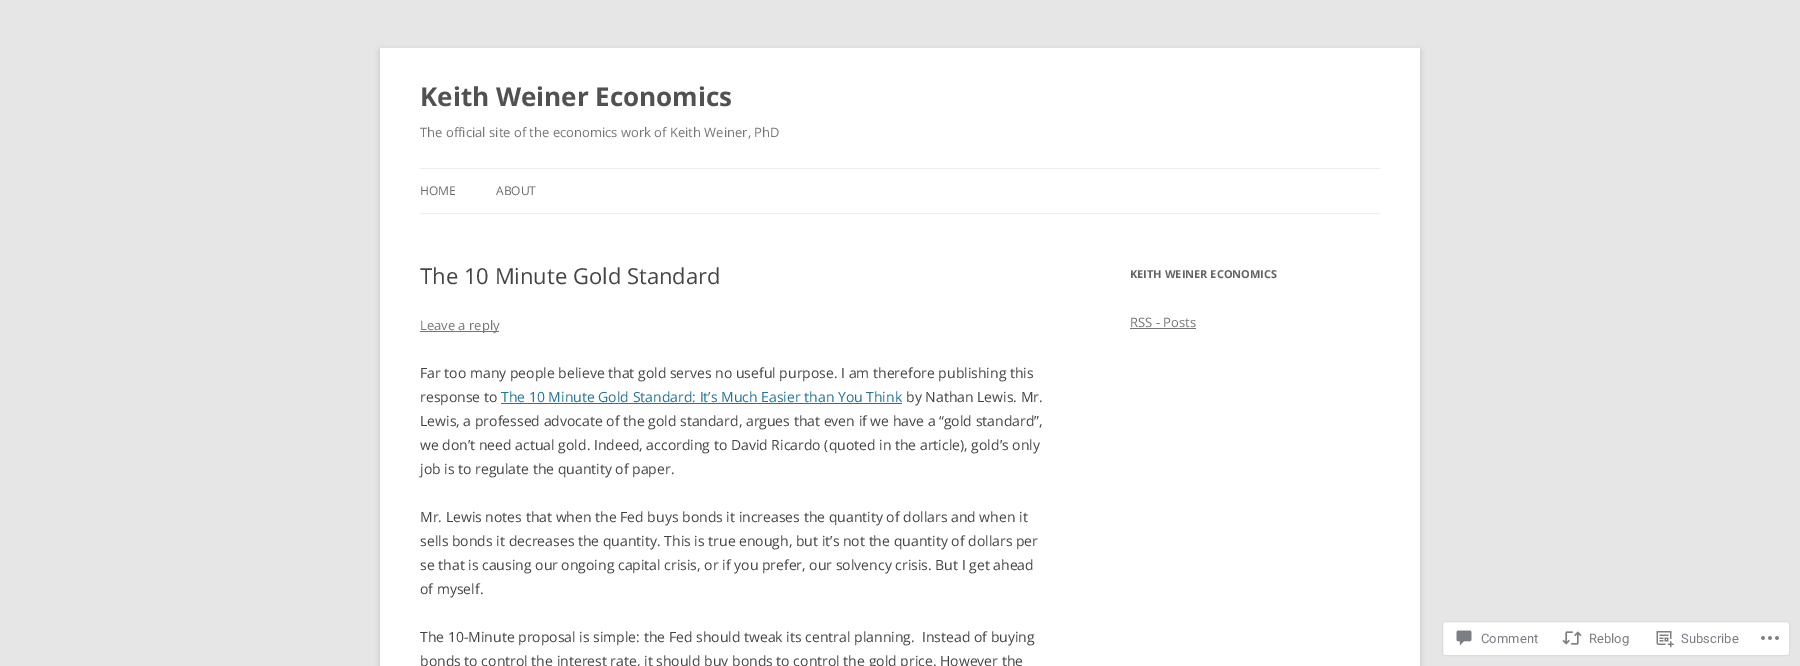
%!PS
<< /PageSize [1800 666] /PageUsesTransparency true >> setpagedevice
/rgb { dup -16 bitshift 255 div exch dup -8 bitshift 255 and 255 div exch 255 and 255 div setrgbcolor } def
/font { [ exch dup neg 0 0 3 -1 roll 0 0 ] selectfont } def
/text { moveto show } def
/alpha { dup .setfillconstantalpha .setstrokeconstantalpha } def
/roundrect { 5 dict begin { /r /h /w /y /x } { exch def } forall
  x r add y moveto x w add y 2 copy h add r arct x w add y h add x 1 index r arct
  x y h add x y r arct x y 2 copy exch w add exch r arct closepath end } def
/shadow { 12 dict begin { /a /b /q /h /w /y /x } { exch def } forall gsave /was 0 def
  9 -2 -9 { dup b mul 4 div /e exch def 1 sub .425 mul 2.718 exch exp 1 add a .99 .min exch div /now exch def
    1 1 now sub 1 was sub div sub alpha /was now def
    w h .min e 2 mul add 0 gt { x e sub y e sub w e 2 mul add h e 2 mul add
      q e add b .6 mul add w h .min 2 div e add .min 0 .max roundrect fill } if } for grestore end } def
/picture { 5 dict begin { /h /w /y /x /name } { exch def } forall
  gsave x y translate w h scale
  w h 8 [w 0 0 h 0 0] name (r) file false 3 colorimage grestore end } def
0 .pushpdf14devicefilter
0 666 translate 1 -1 scale
4 setmiterlimit
/s1 { /OpenSans-Bold 26 font 16#515151 rgb } def
/s2 { /OpenSans-Regular 13 font 16#757575 rgb } def
/s3 { /OpenSans-Regular 12 font 16#6A6A6A rgb } def
/s4 { /OpenSans-Regular 22 font 16#444444 rgb } def
/s5 { /OpenSans-Regular 14 font 16#444444 rgb } def
/s6 { /OpenSans-Regular 14 font 16#21759B rgb } def
/s7 { /OpenSans-Bold 11 font 16#636363 rgb } def
/s8 { /Roboto-Regular 13 font 16#7A7E84 rgb } def
16#E6E6E6 rgb
0 0 1800 666 rectfill
16#646464 rgb
380 50 1040 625 0 3 0.3 shadow
16#FFFFFF rgb
380 48 1040 618 rectfill
s1
(Keith Weiner Economics) 420 106 text
s2
(The official site of the economics work of Keith Weiner, PhD) 420 137 text
16#EDEDED rgb
420 168 960 1 rectfill
420 213 960 1 rectfill
s3
(HOME) 420 195 text
(ABOUT) 496 195 text
s4
(The 10 Minute Gold Standard) 420 284 text
16#757575 rgb
420 331 79 1 rectfill
s2
(Leave a reply) 420 330 text
s5
(Far too many people believe that gold serves no useful purpose. I am therefore publishing this) 420 378 text
(response to) 420 402 text
s6
(The 10 Minute Gold Standard: It’s Much Easier than You Think) 501 402 text
501 403 401 1 rectfill
s5
(by Nathan Lewis. Mr.) 906 402 text
(Lewis, a professed advocate of the gold standard, argues that even if we have a “gold standard”,) 420 426 text
(we don’t need actual gold. Indeed, according to David Ricardo \(quoted in the article\), gold’s only) 420 450 text
(job is to regulate the quantity of paper.) 420 474 text
(Mr. Lewis notes that when the Fed buys bonds it increases the quantity of dollars and when it) 420 522 text
(sells bonds it decreases the quantity. This is true enough, but it’s not the quantity of dollars per) 420 546 text
(se that is causing our ongoing capital crisis, or if you prefer, our solvency crisis. But I get ahead) 420 570 text
(of myself.) 420 594 text
(The 10-Minute proposal is simple: the Fed should tweak its central planning.  Instead of buying) 420 642 text
(bonds to control the interest rate, it should buy bonds to control the gold price. However the) 420 666 text
s7
(KEITH WEINER ECONOMICS) 1130 278 text
s2
(RSS - Posts) 1130 327 text
1130 328 66 1 rectfill
16#FFFFFF rgb
1442.5 621.5 347 34 2.5 roundrect gsave fill grestore
16#DCDCDE rgb
stroke
(pic1.raw) 1456 630 16 16 picture
s8
(Comment) 1481 643 text
(pic2.raw) 1562 631 20 14 picture
(Reblog) 1589 643 text
(pic3.raw) 1656 631 18 17 picture
(Subscribe) 1681 643 text
(pic4.raw) 1761 636 18 4 picture
.poppdf14devicefilter showpage
